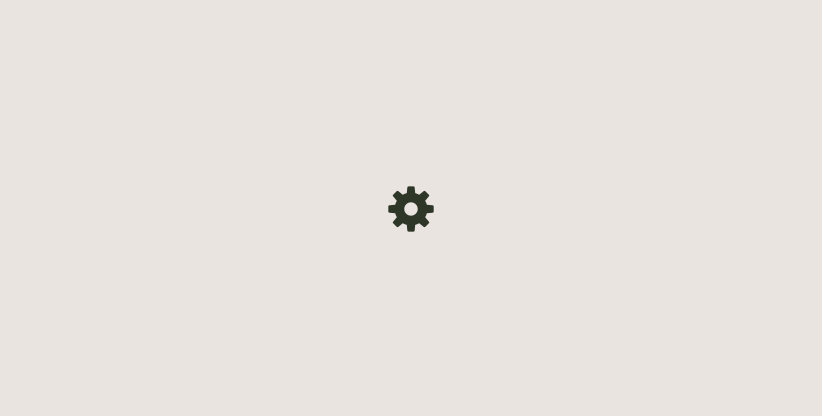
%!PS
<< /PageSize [822 416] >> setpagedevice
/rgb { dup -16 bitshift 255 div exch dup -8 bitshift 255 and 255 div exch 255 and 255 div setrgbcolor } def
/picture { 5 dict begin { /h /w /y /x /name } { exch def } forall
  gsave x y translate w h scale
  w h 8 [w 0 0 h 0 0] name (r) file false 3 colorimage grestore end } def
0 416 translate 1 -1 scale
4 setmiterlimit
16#E9E4E0 rgb
0 0 822 416 rectfill
(pic1.raw) 388 186 46 46 picture
showpage
